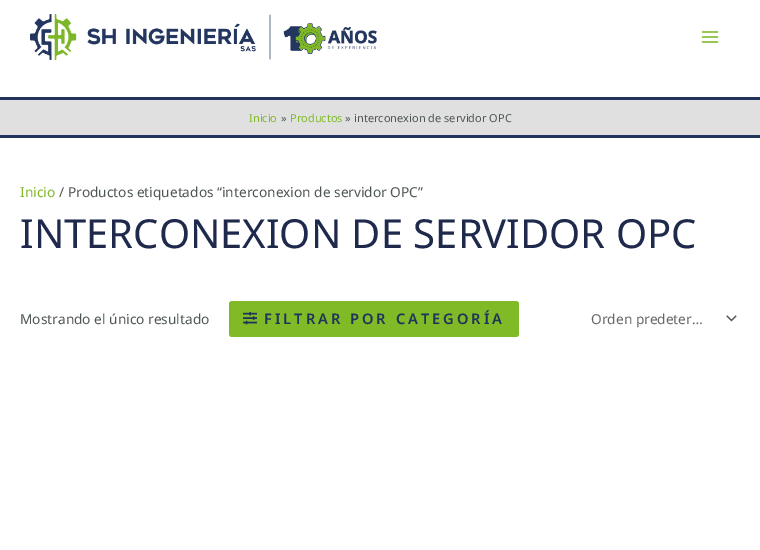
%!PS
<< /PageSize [760 550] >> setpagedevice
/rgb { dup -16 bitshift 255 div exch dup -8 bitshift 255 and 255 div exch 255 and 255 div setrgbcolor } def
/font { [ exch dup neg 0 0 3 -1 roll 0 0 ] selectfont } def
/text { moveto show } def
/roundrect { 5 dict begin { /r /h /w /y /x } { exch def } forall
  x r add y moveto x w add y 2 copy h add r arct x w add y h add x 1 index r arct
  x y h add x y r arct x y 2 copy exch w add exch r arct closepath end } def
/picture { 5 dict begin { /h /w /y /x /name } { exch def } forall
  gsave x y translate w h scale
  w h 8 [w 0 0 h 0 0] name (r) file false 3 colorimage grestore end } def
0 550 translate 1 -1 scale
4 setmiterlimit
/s1 { /NotoSans-Regular 11 font 16#80BA27 rgb } def
/s2 { /NotoSans-Regular 11 font 16#4E5652 rgb } def
/s3 { /NotoSans-Regular 13.7 font 16#80BA27 rgb } def
/s4 { /NotoSans-Regular 13.7 font 16#4E5652 rgb } def
/s5 { /NotoSans-Regular 40 font 16#1E294C rgb } def
/s6 { /NotoSans-Regular 13.7 font 16#666666 rgb } def
16#FFFFFF rgb
0 0 760 550 rectfill
16#20335B rgb
0 97 760 3 rectfill
(pic1.raw) 30 14 347 46 picture
(pic2.raw) 701 31 18 12 picture
16#E0E0E0 rgb
0 100 760 35 rectfill
16#20335B rgb
0 135 760 3 rectfill
s1
(Inicio) 249 122 text
s2
(») 281 122 text
s1
(Productos) 290 122 text
s2
(») 345 122 text
(interconexion de servidor OPC) 354 122 text
s3
(Inicio) 20 197 text
s4
(/ Productos etiquetados “interconexion de servidor OPC”) 59 197 text
s5
(INTERCONEXION DE SERVIDOR OPC) 20 248 text
s4
(Mostrando el único resultado) 20 324 text
16#80BA27 rgb
229 301 290 36 3 roundrect fill
(pic3.raw) 243 311 14 14 picture
/NotoSans-SemiBold 14.6 font
16#20335B rgb
264 324 moveto 3 0 (FILTRAR POR CATEGORÍA) ashow
(pic4.raw) 726 315 11 7 picture
s6
(Orden predeter…) 591 324 text
showpage
